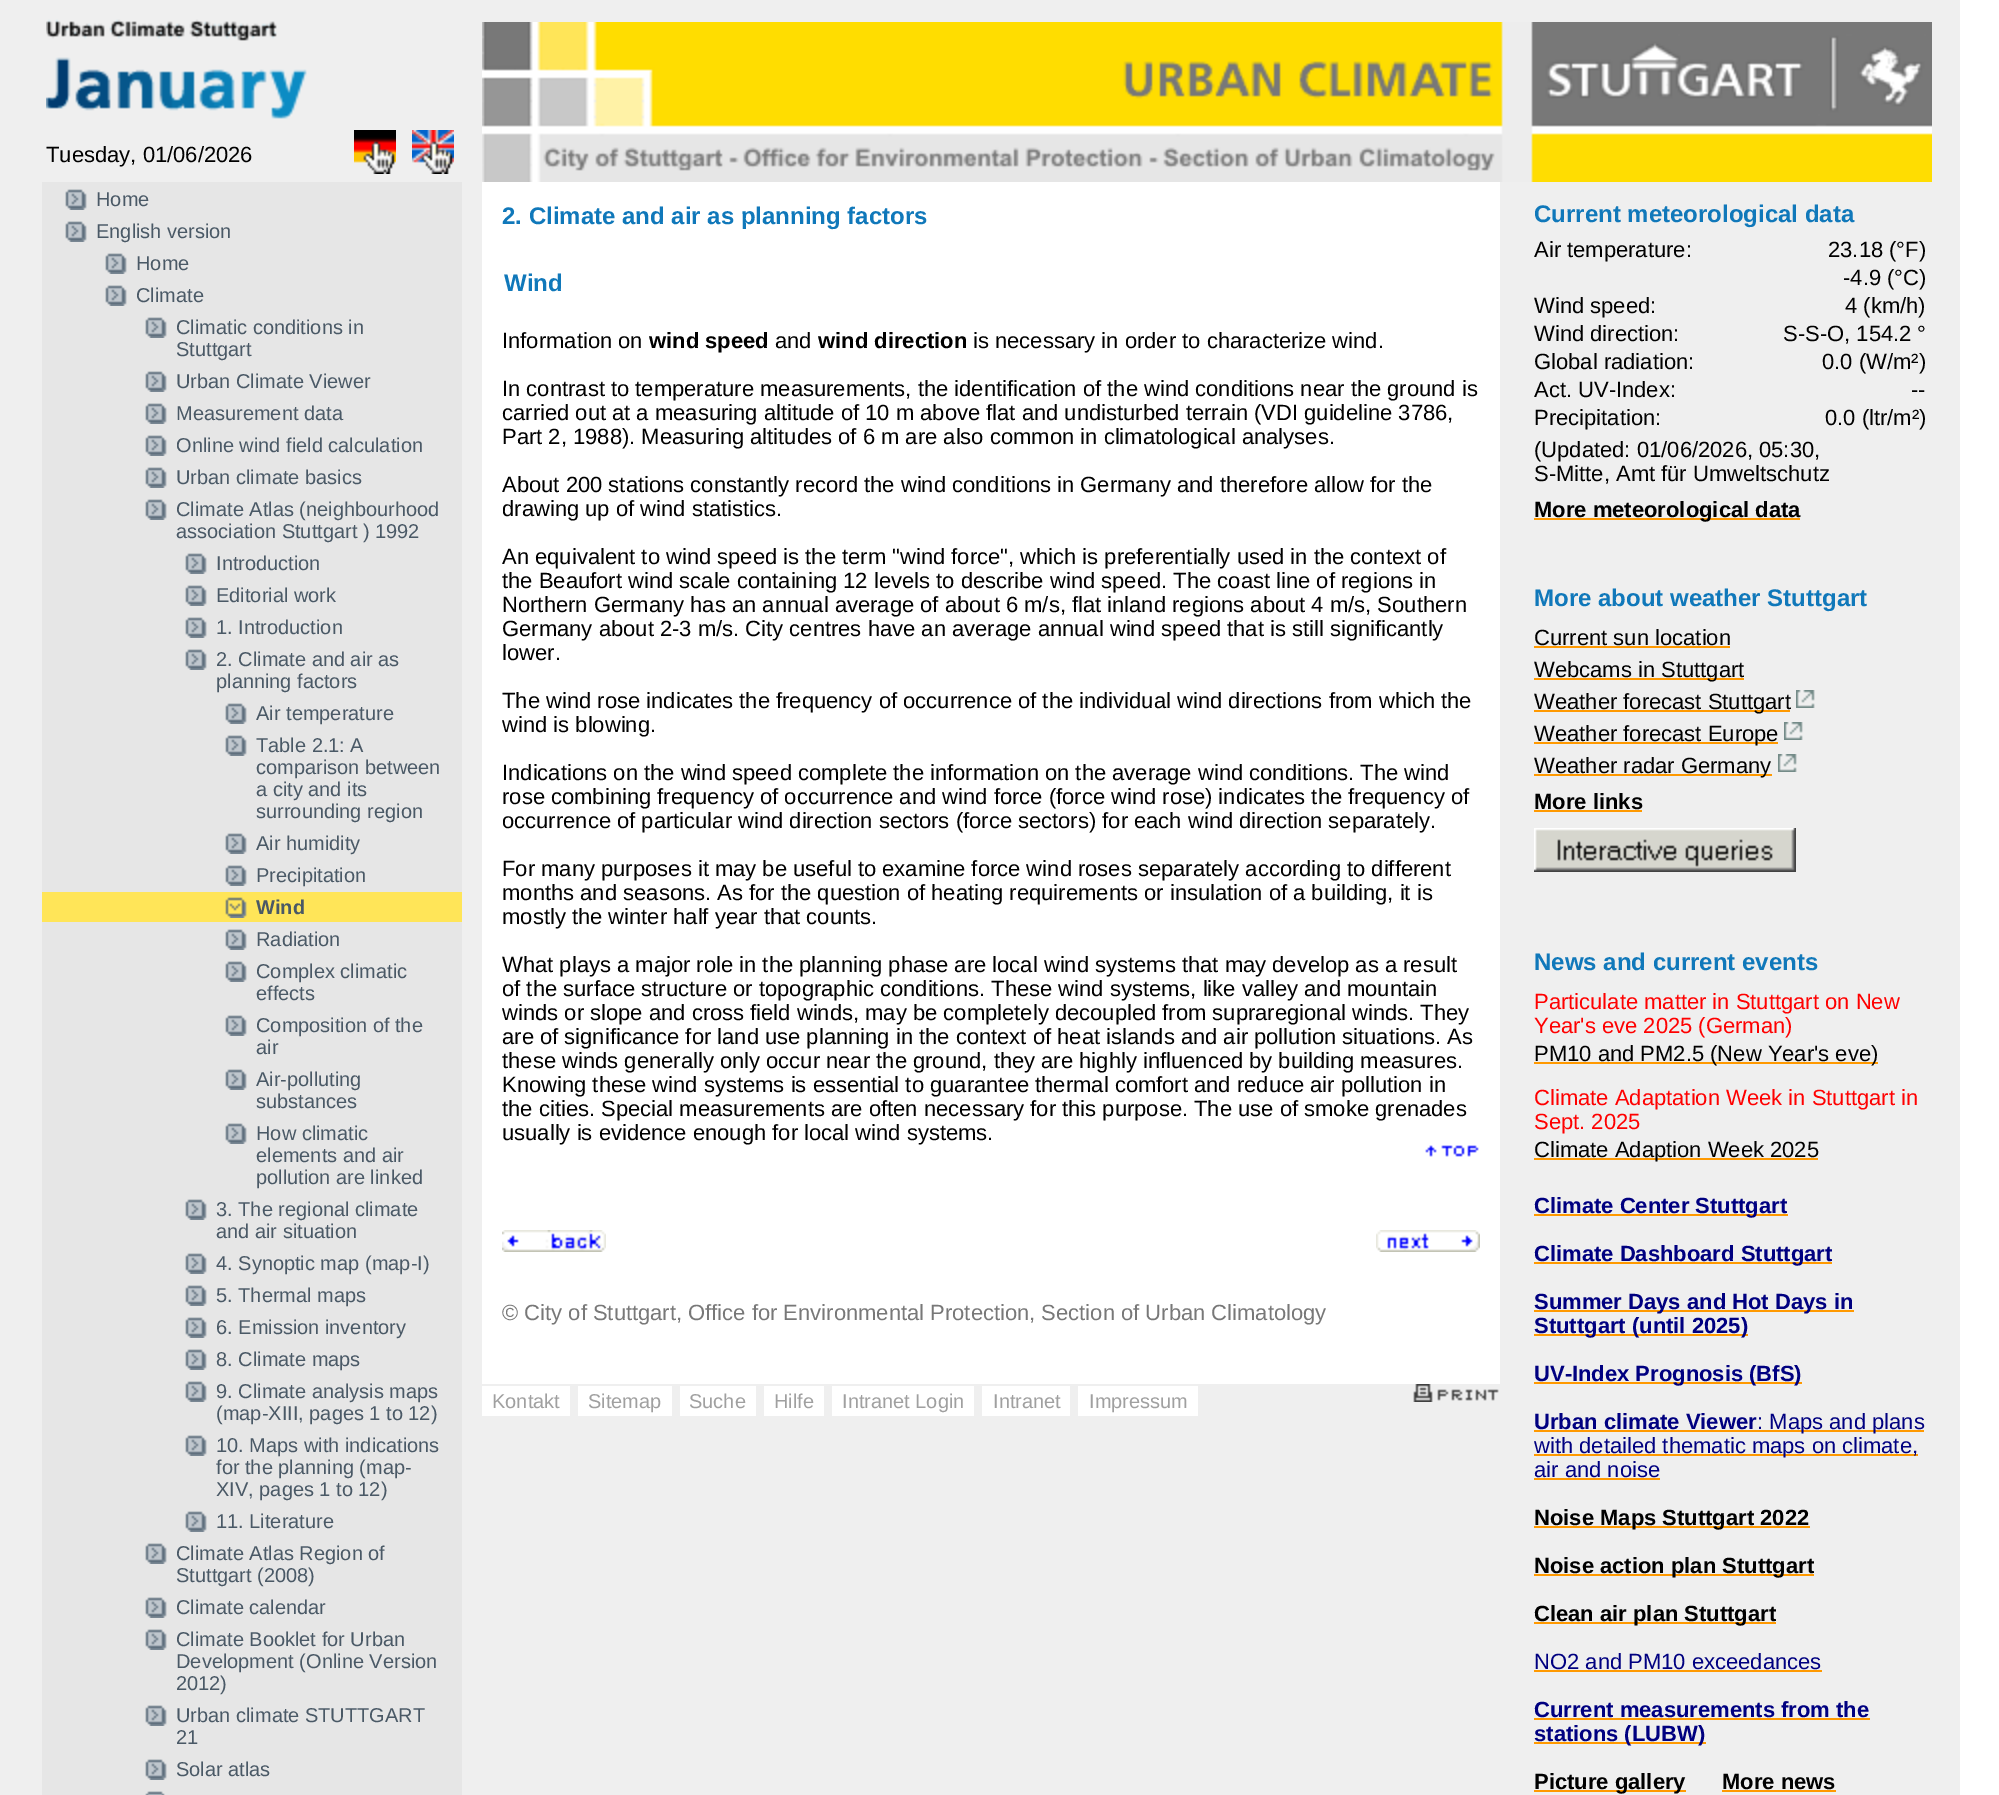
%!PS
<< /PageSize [1999 1795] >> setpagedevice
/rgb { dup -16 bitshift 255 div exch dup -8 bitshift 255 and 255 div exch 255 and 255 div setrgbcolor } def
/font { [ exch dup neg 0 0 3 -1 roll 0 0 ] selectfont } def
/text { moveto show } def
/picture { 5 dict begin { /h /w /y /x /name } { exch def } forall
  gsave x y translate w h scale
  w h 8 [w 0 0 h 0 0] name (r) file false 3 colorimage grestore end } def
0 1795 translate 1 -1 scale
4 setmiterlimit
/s1 { /LiberationSans-Regular 22 font 16#000000 rgb } def
/s2 { /LiberationSans-Regular 20 font 16#4A5966 rgb } def
/s3 { /LiberationSans-Bold 20 font 16#4A5966 rgb } def
/s4 { /LiberationSans-Bold 24 font 16#1078BA rgb } def
/s5 { /LiberationSans-Bold 22 font 16#000000 rgb } def
/s6 { /LiberationSans-Regular 22 font 16#787878 rgb } def
/s7 { /LiberationSans-Regular 20 font 16#A0A0A0 rgb } def
/s8 { /LiberationSans-Regular 22 font 16#FF0000 rgb } def
/s9 { /LiberationSans-Bold 22 font 16#000080 rgb } def
/s10 { /LiberationSans-Regular 22 font 16#000080 rgb } def
16#FFFFFF rgb
0 0 1999 1795 rectfill
16#EFEFEF rgb
0 0 1960 1795 rectfill
(pic1.raw) 46 19 261 100 picture
s1
(Tuesday, 01/06/2026) 46 162 text
(pic2.raw) 354 130 42 44 picture
(pic3.raw) 412 130 42 44 picture
(pic4.raw) 482 22 1450 160 picture
16#E6E6E6 rgb
42 182 420 710 rectfill
(pic5.raw) 65 189 22 21 picture
s2
(Home) 96 206 text
(pic5.raw) 65 221 22 21 picture
(English version) 96 238 text
(pic5.raw) 105 253 22 21 picture
(Home) 136 270 text
(pic5.raw) 105 285 22 21 picture
(Climate) 136 302 text
(pic5.raw) 145 317 22 21 picture
(Climatic conditions in) 176 334 text
(Stuttgart) 176 356 text
(pic5.raw) 145 371 22 21 picture
(Urban Climate Viewer) 176 388 text
(pic5.raw) 145 403 22 21 picture
(Measurement data) 176 420 text
(pic5.raw) 145 435 22 21 picture
(Online wind field calculation) 176 452 text
(pic5.raw) 145 467 22 21 picture
(Urban climate basics) 176 484 text
(pic5.raw) 145 499 22 21 picture
(Climate Atlas \(neighbourhood) 176 516 text
(association Stuttgart \) 1992) 176 538 text
(pic5.raw) 185 553 22 21 picture
(Introduction) 216 570 text
(pic5.raw) 185 585 22 21 picture
(Editorial work) 216 602 text
(pic5.raw) 185 617 22 21 picture
(1. Introduction) 216 634 text
(pic5.raw) 185 649 22 21 picture
(2. Climate and air as) 216 666 text
(planning factors) 216 688 text
(pic5.raw) 225 703 22 21 picture
(Air temperature) 256 720 text
(pic5.raw) 225 735 22 21 picture
(Table 2.1: A) 256 752 text
(comparison between) 256 774 text
(a city and its) 256 796 text
(surrounding region) 256 818 text
(pic5.raw) 225 833 22 21 picture
(Air humidity) 256 850 text
(pic5.raw) 225 865 22 21 picture
(Precipitation) 256 882 text
16#FFE558 rgb
42 892 420 30 rectfill
(pic6.raw) 225 897 22 21 picture
s3
(Wind) 256 914 text
16#E6E6E6 rgb
42 922 420 873 rectfill
(pic5.raw) 225 929 22 21 picture
s2
(Radiation) 256 946 text
(pic5.raw) 225 961 22 21 picture
(Complex climatic) 256 978 text
(effects) 256 1000 text
(pic5.raw) 225 1015 22 21 picture
(Composition of the) 256 1032 text
(air) 256 1054 text
(pic5.raw) 225 1069 22 21 picture
(Air-polluting) 256 1086 text
(substances) 256 1108 text
(pic5.raw) 225 1123 22 21 picture
(How climatic) 256 1140 text
(elements and air) 256 1162 text
(pollution are linked) 256 1184 text
(pic5.raw) 185 1199 22 21 picture
(3. The regional climate) 216 1216 text
(and air situation) 216 1238 text
(pic5.raw) 185 1253 22 21 picture
(4. Synoptic map \(map-I\)) 216 1270 text
(pic5.raw) 185 1285 22 21 picture
(5. Thermal maps) 216 1302 text
(pic5.raw) 185 1317 22 21 picture
(6. Emission inventory) 216 1334 text
(pic5.raw) 185 1349 22 21 picture
(8. Climate maps) 216 1366 text
(pic5.raw) 185 1381 22 21 picture
(9. Climate analysis maps) 216 1398 text
(\(map-XIII, pages 1 to 12\)) 216 1420 text
(pic5.raw) 185 1435 22 21 picture
(10. Maps with indications) 216 1452 text
(for the planning \(map-) 216 1474 text
(XIV, pages 1 to 12\)) 216 1496 text
(pic5.raw) 185 1511 22 21 picture
(11. Literature) 216 1528 text
(pic5.raw) 145 1543 22 21 picture
(Climate Atlas Region of) 176 1560 text
(Stuttgart \(2008\)) 176 1582 text
(pic5.raw) 145 1597 22 21 picture
(Climate calendar) 176 1614 text
(pic5.raw) 145 1629 22 21 picture
(Climate Booklet for Urban) 176 1646 text
(Development \(Online Version) 176 1668 text
(2012\)) 176 1690 text
(pic5.raw) 145 1705 22 21 picture
(Urban climate STUTTGART) 176 1722 text
(21) 176 1744 text
(pic5.raw) 145 1759 22 21 picture
(Solar atlas) 176 1776 text
(pic7.raw) 145 1791 20 4 picture
16#FFFFFF rgb
482 182 1018 1202 rectfill
s4
(2. Climate and air as planning factors) 502 224 text
(Wind) 504 291 text
s1
(Information on) 502 348 text
s5
(wind speed) 649 348 text
s1
(and) 775 348 text
s5
(wind direction) 818 348 text
s1
(is necessary in order to characterize wind.) 973 348 text
(In contrast to temperature measurements, the identification of the wind conditions near the ground is) 502 396 text
(carried out at a measuring altitude of 10 m above flat and undisturbed terrain \(VDI guideline 3786,) 502 420 text
(Part 2, 1988\). Measuring altitudes of 6 m are also common in climatological analyses.) 502 444 text
(About 200 stations constantly record the wind conditions in Germany and therefore allow for the) 502 492 text
(drawing up of wind statistics.) 502 516 text
(An equivalent to wind speed is the term "wind force", which is preferentially used in the context of) 502 564 text
(the Beaufort wind scale containing 12 levels to describe wind speed. The coast line of regions in) 502 588 text
(Northern Germany has an annual average of about 6 m/s, flat inland regions about 4 m/s, Southern) 502 612 text
(Germany about 2-3 m/s. City centres have an average annual wind speed that is still significantly) 502 636 text
(lower.) 502 660 text
(The wind rose indicates the frequency of occurrence of the individual wind directions from which the) 502 708 text
(wind is blowing.) 502 732 text
(Indications on the wind speed complete the information on the average wind conditions. The wind) 502 780 text
(rose combining frequency of occurrence and wind force \(force wind rose\) indicates the frequency of) 502 804 text
(occurrence of particular wind direction sectors \(force sectors\) for each wind direction separately.) 502 828 text
(For many purposes it may be useful to examine force wind roses separately according to different) 502 876 text
(months and seasons. As for the question of heating requirements or insulation of a building, it is) 502 900 text
(mostly the winter half year that counts.) 502 924 text
(What plays a major role in the planning phase are local wind systems that may develop as a result) 502 972 text
(of the surface structure or topographic conditions. These wind systems, like valley and mountain) 502 996 text
(winds or slope and cross field winds, may be completely decoupled from supraregional winds. They) 502 1020 text
(are of significance for land use planning in the context of heat islands and air pollution situations. As) 502 1044 text
(these winds generally only occur near the ground, they are highly influenced by building measures.) 502 1068 text
(Knowing these wind systems is essential to guarantee thermal comfort and reduce air pollution in) 502 1092 text
(the cities. Special measurements are often necessary for this purpose. The use of smoke grenades) 502 1116 text
(usually is evidence enough for local wind systems.) 502 1140 text
(pic8.raw) 1425 1145 54 12 picture
(pic9.raw) 502 1230 104 22 picture
(pic10.raw) 1376 1230 104 22 picture
s6
(© City of Stuttgart, Office for Environmental Protection, Section of Urban Climatology) 502 1320 text
16#FFFFFF rgb
482 1386 88 30 rectfill
s7
(Kontakt) 492 1408 text
16#FFFFFF rgb
578 1386 94 30 rectfill
s7
(Sitemap) 588 1408 text
16#FFFFFF rgb
680 1386 76 30 rectfill
s7
(Suche) 689 1408 text
16#FFFFFF rgb
764 1386 60 30 rectfill
s7
(Hilfe) 774 1408 text
16#FFFFFF rgb
832 1386 142 30 rectfill
s7
(Intranet Login) 842 1408 text
16#FFFFFF rgb
982 1386 88 30 rectfill
s7
(Intranet) 993 1408 text
16#FFFFFF rgb
1078 1386 120 30 rectfill
s7
(Impressum) 1089 1408 text
(pic11.raw) 1413 1384 86 18 picture
s4
(Current meteorological data) 1534 222 text
s1
(Air temperature:) 1534 257 text
(23.18 \(°F\)) 1828 257 text
(-4.9 \(°C\)) 1843 285 text
(Wind speed:) 1534 313 text
(4 \(km/h\)) 1845 313 text
(Wind direction:) 1534 341 text
(S-S-O, 154.2 °) 1783 341 text
(Global radiation:) 1534 369 text
(0.0 \(W/m²\)) 1822 369 text
(Act. UV-Index:) 1534 397 text
(--) 1911 397 text
(Precipitation:) 1534 425 text
(0.0 \(ltr/m²\)) 1825 425 text
(\(Updated: 01/06/2026, 05:30,) 1534 457 text
(S-Mitte, Amt für Umweltschutz) 1534 481 text
16#FF9900 rgb
1534 518 266 2 rectfill
s5
(More meteorological data) 1534 517 text
s4
(More about weather Stuttgart) 1534 606 text
s1
(Current sun location) 1534 645 text
16#FF9900 rgb
1534 646 196 2 rectfill
1534 678 210 2 rectfill
s1
(Webcams in Stuttgart) 1534 677 text
16#FF9900 rgb
1534 710 256 2 rectfill
s1
(Weather forecast Stuttgart) 1534 709 text
(pic12.raw) 1796 690 19 18 picture
16#FF9900 rgb
1534 742 244 2 rectfill
s1
(Weather forecast Europe) 1534 741 text
(pic12.raw) 1784 722 19 18 picture
16#FF9900 rgb
1534 774 238 2 rectfill
s1
(Weather radar Germany) 1534 773 text
(pic12.raw) 1778 754 19 18 picture
s5
(More links) 1534 809 text
16#FF9900 rgb
1534 810 108 2 rectfill
(pic13.raw) 1534 828 262 44 picture
s4
(News and current events) 1534 970 text
s8
(Particulate matter in Stuttgart on New) 1534 1009 text
(Year's eve 2025 \(German\)) 1534 1033 text
16#FF9900 rgb
1534 1062 344 2 rectfill
s1
(PM10 and PM2.5 \(New Year's eve\)) 1534 1061 text
s8
(Climate Adaptation Week in Stuttgart in) 1534 1105 text
(Sept. 2025) 1534 1129 text
16#FF9900 rgb
1534 1158 284 2 rectfill
s1
(Climate Adaption Week 2025) 1534 1157 text
16#FF9900 rgb
1534 1214 254 2 rectfill
s9
(Climate Center Stuttgart) 1534 1213 text
16#FF9900 rgb
1534 1262 298 2 rectfill
s9
(Climate Dashboard Stuttgart) 1534 1261 text
16#FF9900 rgb
1534 1310 320 2 rectfill
s9
(Summer Days and Hot Days in) 1534 1309 text
16#FF9900 rgb
1534 1334 214 2 rectfill
s9
(Stuttgart \(until 2025\)) 1534 1333 text
16#FF9900 rgb
1534 1382 268 2 rectfill
s9
(UV-Index Prognosis \(BfS\)) 1534 1381 text
(Urban climate Viewer) 1534 1429 text
16#FF9900 rgb
1534 1430 390 2 rectfill
s10
(: Maps and plans) 1757 1429 text
16#FF9900 rgb
1534 1454 384 2 rectfill
s10
(with detailed thematic maps on climate,) 1534 1453 text
(air and noise) 1534 1477 text
16#FF9900 rgb
1534 1478 126 2 rectfill
1534 1526 276 2 rectfill
s5
(Noise Maps Stuttgart 2022) 1534 1525 text
16#FF9900 rgb
1534 1574 280 2 rectfill
s5
(Noise action plan Stuttgart) 1534 1573 text
16#FF9900 rgb
1534 1622 242 2 rectfill
s5
(Clean air plan Stuttgart) 1534 1621 text
s10
(NO2 and PM10 exceedances) 1534 1669 text
16#FF9900 rgb
1534 1670 288 2 rectfill
s9
(Current measurements from the) 1534 1717 text
16#FF9900 rgb
1534 1718 336 2 rectfill
1534 1742 172 2 rectfill
s9
(stations \(LUBW\)) 1534 1741 text
16#FF9900 rgb
1534 1790 152 2 rectfill
s5
(Picture gallery) 1534 1789 text
(More news) 1722 1789 text
16#FF9900 rgb
1722 1790 114 2 rectfill
showpage
